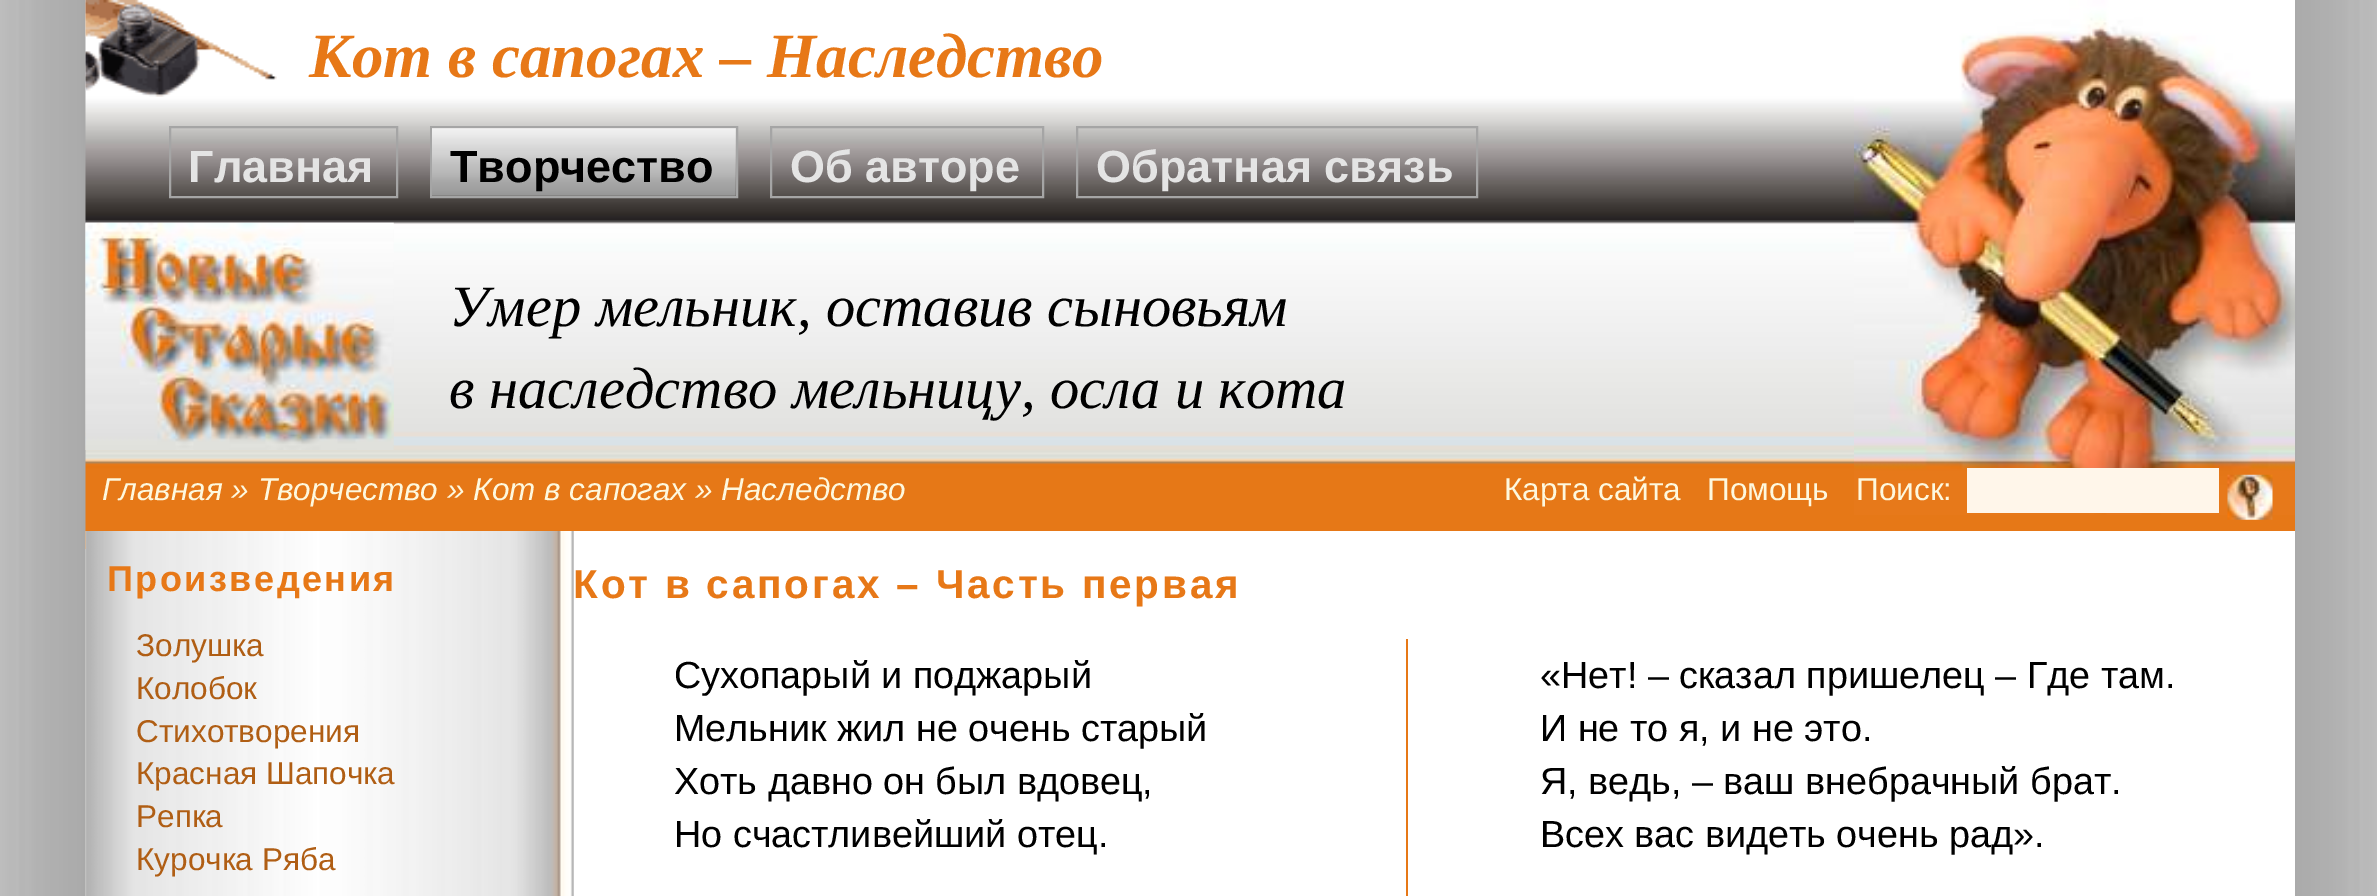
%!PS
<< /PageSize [2377 896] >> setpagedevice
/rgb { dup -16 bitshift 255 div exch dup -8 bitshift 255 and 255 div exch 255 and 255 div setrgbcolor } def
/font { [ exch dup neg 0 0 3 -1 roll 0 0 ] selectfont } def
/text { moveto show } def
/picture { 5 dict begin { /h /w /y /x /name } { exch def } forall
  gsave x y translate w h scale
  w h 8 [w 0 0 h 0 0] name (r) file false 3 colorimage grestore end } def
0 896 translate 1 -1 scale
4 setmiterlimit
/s1 { /LiberationSerif-BoldItalic 63 font 16#E77817 rgb } def
/s2 { /LiberationSans-Bold 45 font 16#E4E4E4 rgb } def
/s3 { /LiberationSans-Bold 45 font 16#000000 rgb } def
/s4 { /LiberationSerif-Italic 58.5 font 16#000000 rgb } def
/s5 { /LiberationSans-Italic 31.5 font 16#FEF8DE rgb } def
/s6 { /LiberationSans-Regular 31.5 font 16#FEF8DE rgb } def
/s7 { /LiberationSans-Regular 31.5 font 16#B05E14 rgb } def
/s8 { /LiberationSans-Regular 37.75 font 16#000000 rgb } def
16#FFFFFF rgb
0 0 2377 896 rectfill
(pic1.raw) 0 0 2377 896 picture
(pic2.raw) 85 0 2210 549 picture
(pic3.raw) 1854 0 441 515 picture
(pic4.raw) 85 0 192 97 picture
s1
(Кот в сапогах – Наследство) 309 77 text
16#A5A5A5 rgb
2 setlinewidth
170 127 227 70 rectstroke
s2
(Главная) 188 182 text
16#A5A5A5 rgb
431 127 306 70 rectstroke
(pic5.raw) 432 128 304 68 picture
s3
(Творчество) 450 182 text
16#A5A5A5 rgb
771 127 272 70 rectstroke
s2
(Об авторе) 790 182 text
16#A5A5A5 rgb
1077 127 400 70 rectstroke
s2
(Обратная связь) 1096 182 text
(pic6.raw) 85 222 309 228 picture
s4
(Умер мельник, оставив сыновьям) 449 326 text
(в наследство мельницу, осла и кота) 449 408 text
s5
(Главная » Творчество » Кот в сапогах » Наследство) 102 500 text
s6
(Карта сайта) 1504 500 text
(Помощь) 1707 500 text
(Поиск:) 1856 500 text
16#FFF6EA rgb
1967 468 252 45 rectfill
(pic7.raw) 2227 474 46 46 picture
16#FFFFFF rgb
573 531 1722 365 rectfill
(pic8.raw) 85 531 489 365 picture
/LiberationSans-Bold 36 font
16#E77817 rgb
107 591 moveto 2.5 0 (Произведения) ashow
s7
(Золушка) 136 656 text
(Колобок) 136 699 text
(Стихотворения) 136 742 text
(Красная Шапочка) 136 784 text
(Репка) 136 827 text
(Курочка Ряба) 136 870 text
/LiberationSans-Bold 40.5 font
16#E77817 rgb
573 598 moveto 2.8 0 (Кот в сапогах – Часть первая) ashow
1406 639 2 257 rectfill
s8
(Сухопарый и поджарый) 674 688 text
(Мельник жил не очень старый) 674 741 text
(Хоть давно он был вдовец,) 674 794 text
(Но счастливейший отец.) 674 847 text
(«Нет! – сказал пришелец – Где там.) 1540 688 text
(И не то я, и не это.) 1540 741 text
(Я, ведь, – ваш внебрачный брат.) 1540 794 text
(Всех вас видеть очень рад».) 1540 847 text
showpage
